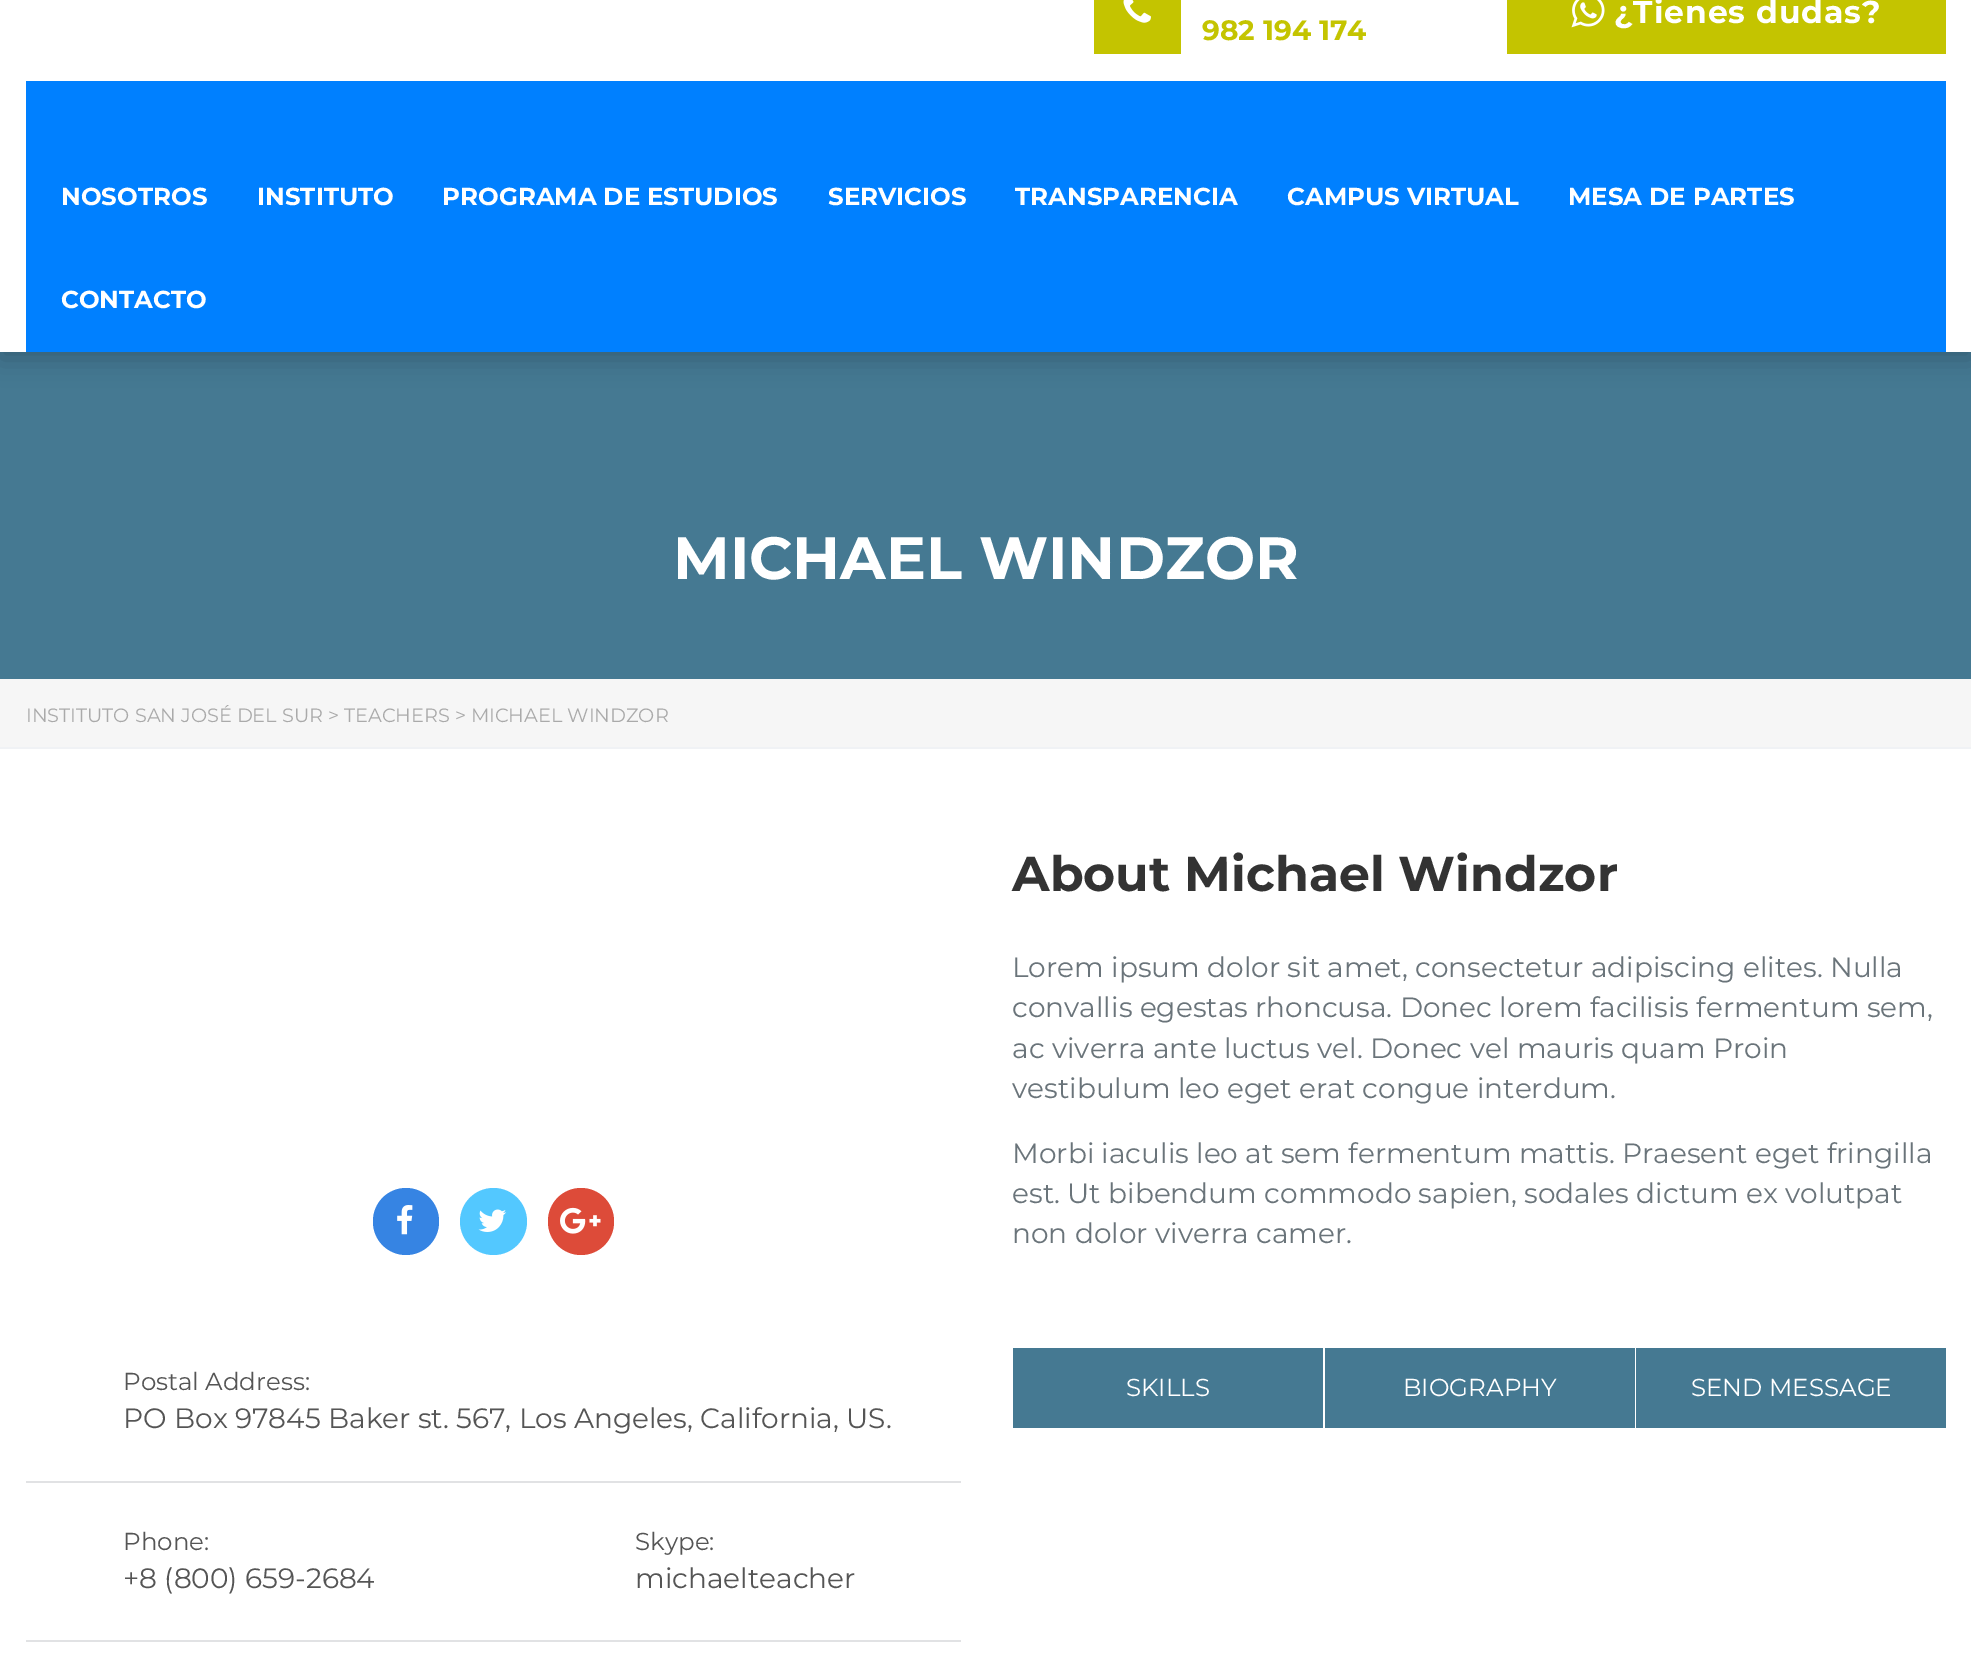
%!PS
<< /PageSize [1971 1679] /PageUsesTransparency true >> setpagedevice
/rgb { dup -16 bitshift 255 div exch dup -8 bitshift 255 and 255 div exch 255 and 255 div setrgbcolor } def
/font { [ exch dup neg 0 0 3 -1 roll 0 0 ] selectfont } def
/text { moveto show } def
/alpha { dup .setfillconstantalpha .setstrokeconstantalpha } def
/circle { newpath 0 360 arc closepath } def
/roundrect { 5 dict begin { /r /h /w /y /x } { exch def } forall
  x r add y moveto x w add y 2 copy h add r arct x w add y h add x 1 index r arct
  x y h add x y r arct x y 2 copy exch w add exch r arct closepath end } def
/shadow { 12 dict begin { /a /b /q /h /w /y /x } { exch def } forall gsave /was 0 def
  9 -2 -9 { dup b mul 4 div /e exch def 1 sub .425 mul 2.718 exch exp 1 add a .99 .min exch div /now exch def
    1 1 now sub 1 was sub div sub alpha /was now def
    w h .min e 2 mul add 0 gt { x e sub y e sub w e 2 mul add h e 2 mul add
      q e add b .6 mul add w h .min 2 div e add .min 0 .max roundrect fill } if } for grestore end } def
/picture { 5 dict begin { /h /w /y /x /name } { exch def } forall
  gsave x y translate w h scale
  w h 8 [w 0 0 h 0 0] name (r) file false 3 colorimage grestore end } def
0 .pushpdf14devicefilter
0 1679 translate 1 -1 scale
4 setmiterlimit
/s1 { /Montserrat-Bold 28 font 16#C4C400 rgb } def
/s2 { /Montserrat-Bold 24.5 font 16#FFFFFF rgb } def
/s3 { /Montserrat-Bold 59.5 font 16#FFFFFF rgb } def
/s4 { /Montserrat-Regular 19.25 font 16#AAAAAA rgb } def
/s5 { /Montserrat-Bold 49 font 16#333333 rgb } def
/s6 { /Montserrat-Regular 28 font 16#6A747A rgb } def
/s7 { /Montserrat-Regular 24.5 font 16#FFFFFF rgb } def
/s8 { /Montserrat-Regular 24.5 font 16#555555 rgb } def
/s9 { /Montserrat-Regular 28 font 16#555555 rgb } def
16#FFFFFF rgb
0 0 1971 1679 rectfill
16#457992 rgb
0 352 1971 327 rectfill
16#000000 rgb
0 -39 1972 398 0 13 0.2 shadow
16#FFFFFF rgb
0 0 1971 352 rectfill
16#C4C400 rgb
1094 0 87 54 rectfill
(pic1.raw) 1123 0 28 23 picture
s1
(982 194 174) 1202 40 text
1507 0 439 54 rectfill
(pic2.raw) 1571 0 34 28 picture
/Montserrat-Bold 31.5 font
16#FFFFFF rgb
1614 23 moveto 0.9 0 (¿Tienes dudas?) ashow
16#0080FF rgb
26 81 1920 271 rectfill
s2
(NOSOTROS) 61 205 text
(INSTITUTO) 257 205 text
(PROGRAMA DE ESTUDIOS) 442 205 text
(SERVICIOS) 828 205 text
(TRANSPARENCIA) 1015 205 text
(CAMPUS VIRTUAL) 1287 205 text
(MESA DE PARTES) 1568 205 text
(CONTACTO) 61 308 text
s3
(MICHAEL WINDZOR) 673 579 text
16#F6F6F6 rgb
0 679 1971 68 rectfill
16#F0F2F5 rgb
0 747 1971 2 rectfill
s4
(INSTITUTO SAN JOSÉ DEL SUR > TEACHERS > MICHAEL WINDZOR) 26 722 text
s5
(About Michael Windzor) 1012 891 text
s6
(Lorem ipsum dolor sit amet, consectetur adipiscing elites. Nulla) 1012 977 text
(convallis egestas rhoncusa. Donec lorem facilisis fermentum sem,) 1012 1017 text
(ac viverra ante luctus vel. Donec vel mauris quam Proin) 1012 1058 text
(vestibulum leo eget erat congue interdum.) 1012 1098 text
(Morbi iaculis leo at sem fermentum mattis. Praesent eget fringilla) 1012 1163 text
(est. Ut bibendum commodo sapien, sodales dictum ex volutpat) 1012 1203 text
(non dolor viverra camer.) 1012 1243 text
16#457992 rgb
1013 1348 310 80 rectfill
s7
(SKILLS) 1126 1396 text
16#457992 rgb
1325 1348 310 80 rectfill
s7
(BIOGRAPHY) 1403 1396 text
16#457992 rgb
1636 1348 310 80 rectfill
s7
(SEND MESSAGE) 1691 1396 text
16#3684E3 rgb
373 1188 66 67 33 roundrect fill
(pic3.raw) 397 1205 16 30 picture
16#53C8FF rgb
493.5 1221.5 33.5 circle fill
(pic4.raw) 478 1209 29 23 picture
16#DD4B39 rgb
548 1188 66 67 33 roundrect fill
(pic5.raw) 560 1207 41 27 picture
16#E1E2E4 rgb
26 1481 935 2 rectfill
s8
(Postal Address:) 123 1390 text
s9
(PO Box 97845 Baker st. 567, Los Angeles, California, US.) 123 1428 text
16#E1E2E4 rgb
26 1640 935 2 rectfill
s8
(Phone:) 123 1550 text
s9
(+8 \(800\) 659-2684) 123 1588 text
s8
(Skype:) 635 1550 text
s9
(michaelteacher) 635 1588 text
.poppdf14devicefilter showpage
